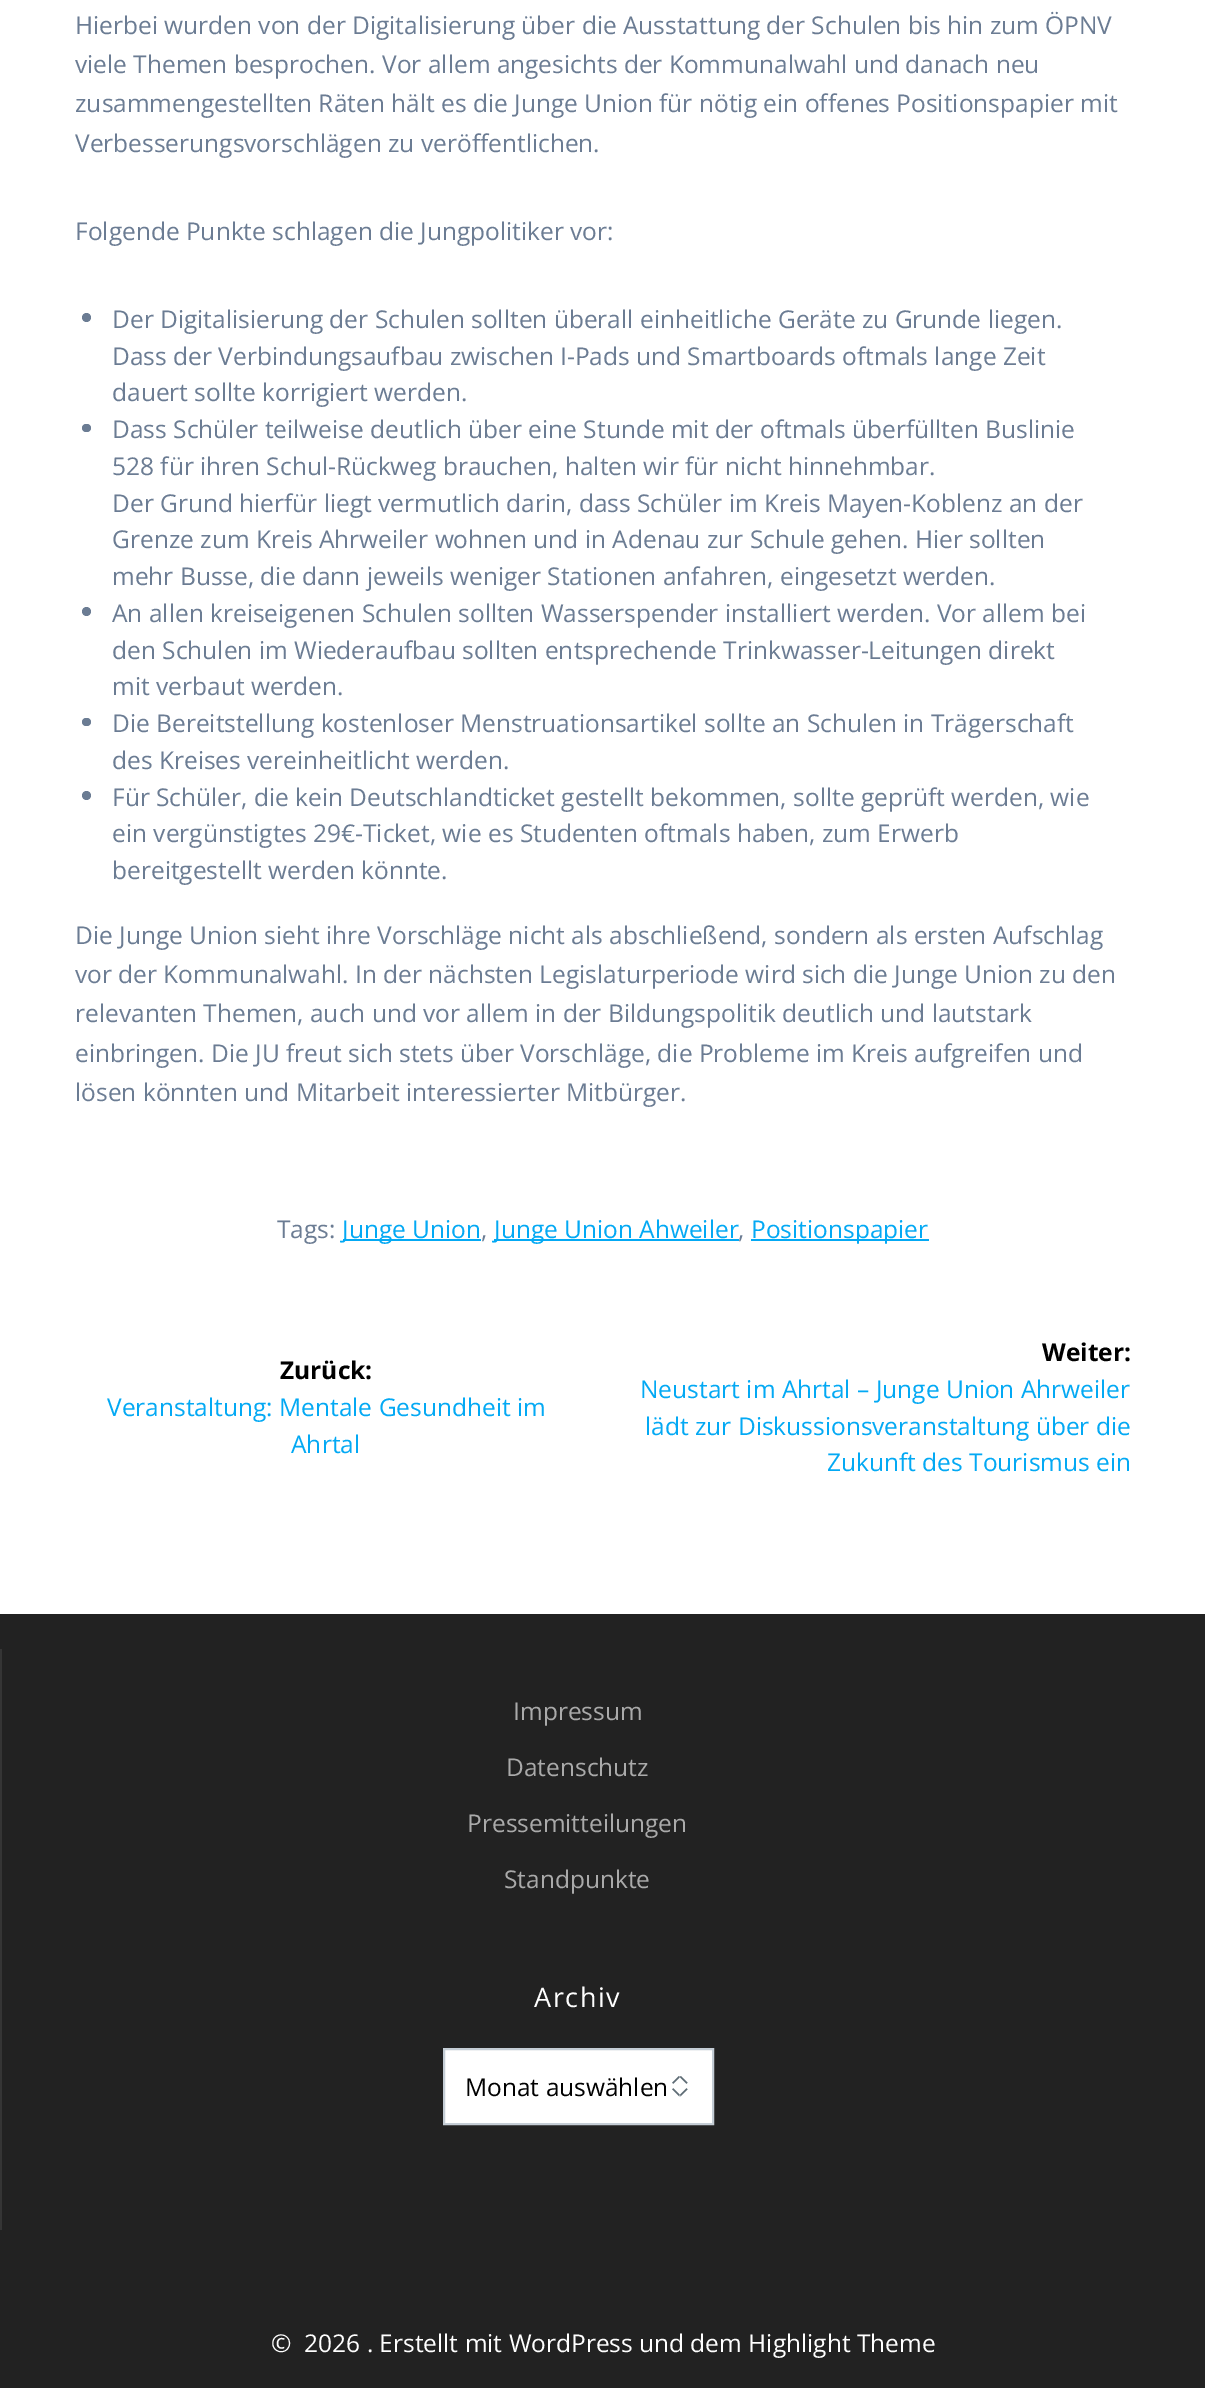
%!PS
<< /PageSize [1205 2388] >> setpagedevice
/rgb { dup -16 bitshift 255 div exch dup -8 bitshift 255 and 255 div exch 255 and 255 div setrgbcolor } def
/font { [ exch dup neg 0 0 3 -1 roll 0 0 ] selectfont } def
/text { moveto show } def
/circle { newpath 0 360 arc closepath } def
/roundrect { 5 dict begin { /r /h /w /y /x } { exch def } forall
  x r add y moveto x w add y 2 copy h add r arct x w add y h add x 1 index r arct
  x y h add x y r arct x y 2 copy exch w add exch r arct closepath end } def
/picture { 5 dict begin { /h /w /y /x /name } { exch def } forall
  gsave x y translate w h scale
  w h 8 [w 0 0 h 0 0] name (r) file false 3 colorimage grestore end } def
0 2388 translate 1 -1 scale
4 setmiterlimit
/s1 { /OpenSans-Regular 24.5 font 16#6B7C93 rgb } def
/s2 { /OpenSans-Regular 24.5 font 16#03A9F4 rgb } def
/s3 { /OpenSans-Bold 24.5 font 16#000000 rgb } def
/s4 { /OpenSans-Regular 24.5 font 16#AAAAAA rgb } def
/s5 { /OpenSans-Regular 24.5 font 16#000000 rgb } def
/s6 { /OpenSans-Regular 24.5 font 16#FFFFFF rgb } def
16#FFFFFF rgb
0 0 1205 2388 rectfill
s1
(Hierbei wurden von der Digitalisierung über die Ausstattung der Schulen bis hin zum ÖPNV) 75 34 text
(viele Themen besprochen. Vor allem angesichts der Kommunalwahl und danach neu) 75 73 text
(zusammengestellten Räten hält es die Junge Union für nötig ein offenes Positionspapier mit) 75 112 text
(Verbesserungsvorschlägen zu veröffentlichen.) 75 152 text
(Folgende Punkte schlagen die Jungpolitiker vor:) 75 240 text
86.5 317.5 4.5 circle fill
(Der Digitalisierung der Schulen sollten überall einheitliche Geräte zu Grunde liegen.) 112 328 text
(Dass der Verbindungsaufbau zwischen I-Pads und Smartboards oftmals lange Zeit) 112 365 text
(dauert sollte korrigiert werden.) 112 401 text
82 424 9 8 4 roundrect fill
(Dass Schüler teilweise deutlich über eine Stunde mit der oftmals überfüllten Buslinie) 112 438 text
(528 für ihren Schul-Rückweg brauchen, halten wir für nicht hinnehmbar.) 112 475 text
(Der Grund hierfür liegt vermutlich darin, dass Schüler im Kreis Mayen-Koblenz an der) 112 512 text
(Grenze zum Kreis Ahrweiler wohnen und in Adenau zur Schule gehen. Hier sollten) 112 548 text
(mehr Busse, die dann jeweils weniger Stationen anfahren, eingesetzt werden.) 112 585 text
86.5 611.5 4.5 circle fill
(An allen kreiseigenen Schulen sollten Wasserspender installiert werden. Vor allem bei) 112 622 text
(den Schulen im Wiederaufbau sollten entsprechende Trinkwasser-Leitungen direkt) 112 659 text
(mit verbaut werden.) 112 695 text
82 718 9 8 4 roundrect fill
(Die Bereitstellung kostenloser Menstruationsartikel sollte an Schulen in Trägerschaft) 112 732 text
(des Kreises vereinheitlicht werden.) 112 769 text
86.5 795.5 4.5 circle fill
(Für Schüler, die kein Deutschlandticket gestellt bekommen, sollte geprüft werden, wie) 112 806 text
(ein vergünstigtes 29€-Ticket, wie es Studenten oftmals haben, zum Erwerb) 112 842 text
(bereitgestellt werden könnte.) 112 879 text
(Die Junge Union sieht ihre Vorschläge nicht als abschließend, sondern als ersten Aufschlag) 75 944 text
(vor der Kommunalwahl. In der nächsten Legislaturperiode wird sich die Junge Union zu den) 75 983 text
(relevanten Themen, auch und vor allem in der Bildungspolitik deutlich und lautstark) 75 1022 text
(einbringen. Die JU freut sich stets über Vorschläge, die Probleme im Kreis aufgreifen und) 75 1062 text
(lösen könnten und Mitarbeit interessierter Mitbürger.) 75 1101 text
(Tags:) 277 1238 text
16#03A9F4 rgb
343 1239 138 2 rectfill
(Junge Union) 342 1238 text
s1
(,) 481 1238 text
16#03A9F4 rgb
494 1239 245 2 rectfill
(Junge Union Ahweiler) 494 1238 text
s1
(,) 738 1238 text
16#03A9F4 rgb
751 1239 178 2 rectfill
(Positionspapier) 751 1238 text
s3
(Zurück:) 280 1379 text
s2
(Veranstaltung: Mentale Gesundheit im) 107 1416 text
(Ahrtal) 291 1453 text
s3
(Weiter:) 1042 1361 text
s2
(Neustart im Ahrtal – Junge Union Ahrweiler) 640 1398 text
(lädt zur Diskussionsveranstaltung über die) 645 1435 text
(Zukunft des Tourismus ein) 827 1471 text
16#222222 rgb
0 1614 1205 774 rectfill
16#353535 rgb
0 1649 2 581 rectfill
s4
(Impressum) 513 1720 text
(Datenschutz) 506 1776 text
(Pressemitteilungen) 467 1832 text
(Standpunkte) 504 1888 text
/OpenSans-Regular 27 font
16#FFFFFF rgb
534 2007 moveto 1.5 0 (Archiv) ashow
445 2050 267 73 rectfill
(pic1.raw) 672 2076 16 21 picture
16#C4CDD5 rgb
2 setlinewidth
444 2049 269 75 rectstroke
s5
(Monat auswählen) 465 2096 text
s6
(©  2026 . Erstellt mit WordPress und dem Highlight Theme) 271 2352 text
showpage
